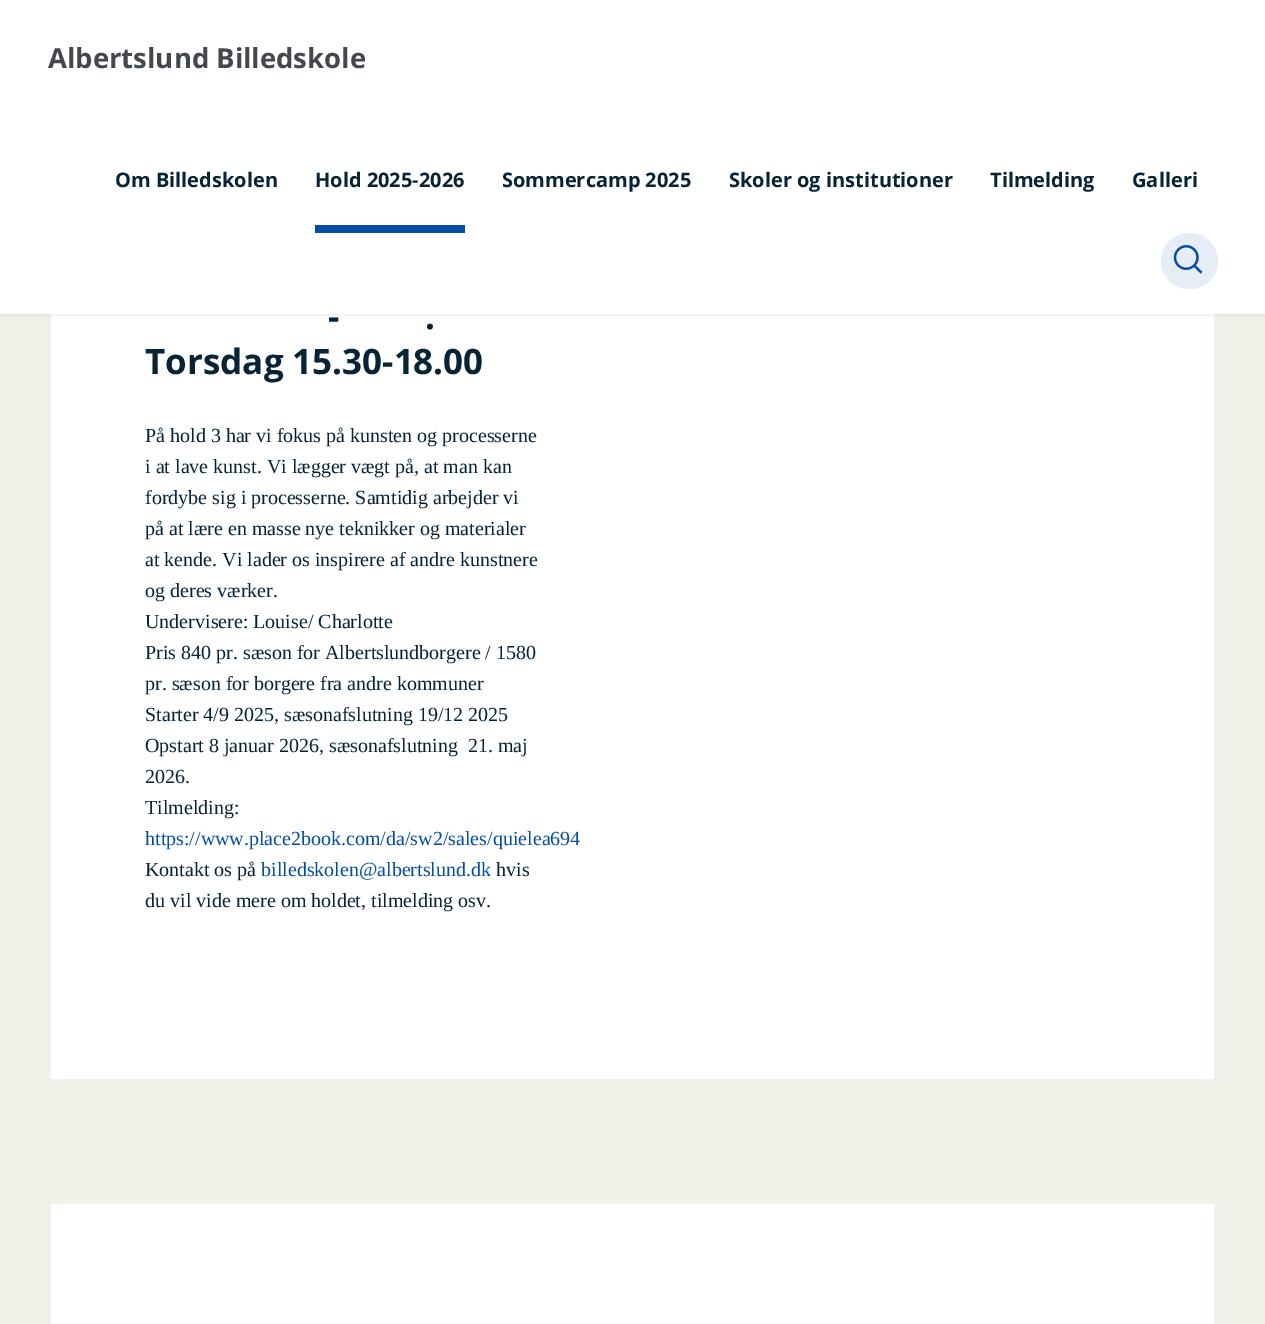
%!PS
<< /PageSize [1265 1324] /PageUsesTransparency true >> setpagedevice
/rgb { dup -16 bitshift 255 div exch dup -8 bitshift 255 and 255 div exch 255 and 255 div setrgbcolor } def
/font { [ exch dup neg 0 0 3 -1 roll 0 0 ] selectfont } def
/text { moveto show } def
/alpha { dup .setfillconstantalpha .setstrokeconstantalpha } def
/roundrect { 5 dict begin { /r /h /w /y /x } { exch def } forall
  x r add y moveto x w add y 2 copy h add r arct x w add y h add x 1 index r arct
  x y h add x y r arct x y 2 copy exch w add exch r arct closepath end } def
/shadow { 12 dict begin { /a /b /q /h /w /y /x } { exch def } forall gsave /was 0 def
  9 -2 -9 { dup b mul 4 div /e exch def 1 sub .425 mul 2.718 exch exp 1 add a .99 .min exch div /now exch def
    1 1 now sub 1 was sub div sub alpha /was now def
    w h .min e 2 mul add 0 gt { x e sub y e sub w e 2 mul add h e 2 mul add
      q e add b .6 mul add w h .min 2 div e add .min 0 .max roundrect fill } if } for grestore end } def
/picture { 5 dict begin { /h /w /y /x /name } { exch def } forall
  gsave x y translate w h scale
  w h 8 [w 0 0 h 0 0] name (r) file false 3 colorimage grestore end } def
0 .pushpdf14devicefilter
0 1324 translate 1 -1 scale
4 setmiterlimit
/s1 { /OpenSans-Bold 27.5 font 16#43484F rgb } def
/s2 { /OpenSans-Bold 20 font 16#072335 rgb } def
/s3 { /OpenSans-Bold 35 font 16#072335 rgb } def
/s4 { /LiberationSerif-Regular 20 font 16#072335 rgb } def
/s5 { /LiberationSerif-Regular 20 font 16#034EA2 rgb } def
16#F1F1E9 rgb
0 0 1265 1324 rectfill
16#FFFFFF rgb
51 314 1163 765 rectfill
16#000000 rgb
0 3 1265 313 0 2.5 0.05 shadow
16#FFFFFF rgb
0 0 1265 314 rectfill
s1
(Albertslund Billedskole) 48 68 text
s2
(Om Billedskolen) 115 187 text
(Hold 2025-2026) 315 187 text
16#034EA2 rgb
315 225 150 8 rectfill
s2
(Sommercamp 2025) 502 187 text
(Skoler og institutioner) 729 187 text
(Tilmelding) 990 187 text
(Galleri) 1132 187 text
16#E6EDF6 rgb
1161 233 57 56 28 roundrect fill
(pic1.raw) 1173 245 30 29 picture
s3
(-) 328 329 text
(.) 425 329 text
(Torsdag 15.30-18.00) 145 374 text
s4
(På hold 3 har vi fokus på kunsten og processerne) 145 442 text
(i at lave kunst. Vi lægger vægt på, at man kan) 145 473 text
(fordybe sig i processerne. Samtidig arbejder vi) 145 504 text
(på at lære en masse nye teknikker og materialer) 145 535 text
(at kende. Vi lader os inspirere af andre kunstnere) 145 566 text
(og deres værker.) 145 597 text
(Undervisere: Louise/ Charlotte) 145 628 text
(Pris 840 pr. sæson for Albertslundborgere / 1580) 145 659 text
(pr. sæson for borgere fra andre kommuner) 145 690 text
(Starter 4/9 2025, sæsonafslutning 19/12 2025) 145 721 text
(Opstart 8 januar 2026, sæsonafslutning  21. maj) 145 752 text
(2026.) 145 783 text
(Tilmelding:) 145 814 text
s5
(https://www.place2book.com/da/sw2/sales/quielea694) 145 845 text
s4
(Kontakt os på) 145 876 text
s5
(billedskolen@albertslund.dk) 261 876 text
s4
(hvis) 496 876 text
(du vil vide mere om holdet, tilmelding osv.) 145 907 text
16#FFFFFF rgb
51 1204 1163 120 rectfill
.poppdf14devicefilter showpage
